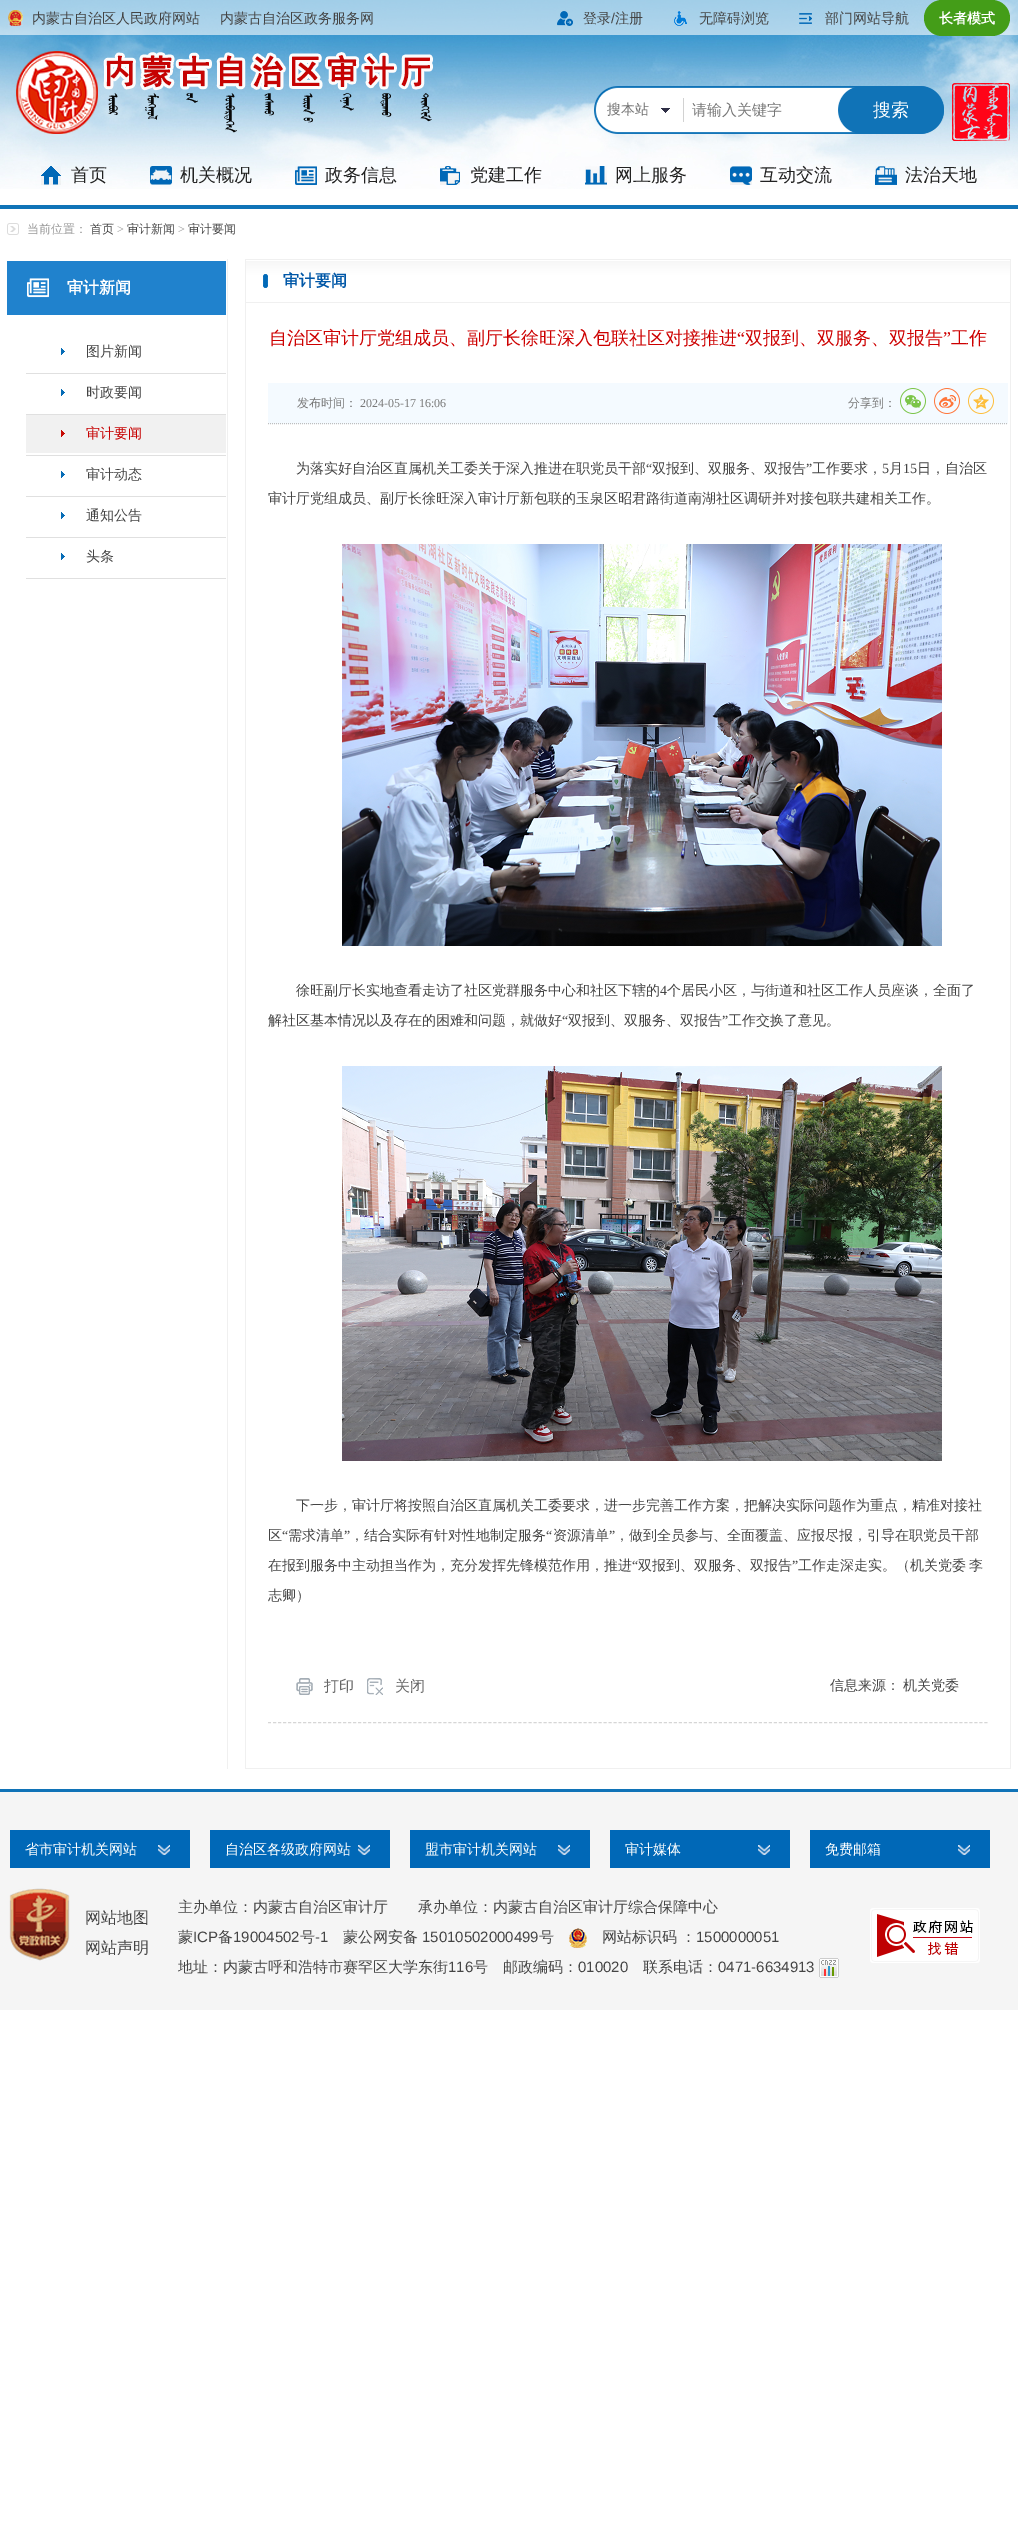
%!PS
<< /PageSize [1018 2546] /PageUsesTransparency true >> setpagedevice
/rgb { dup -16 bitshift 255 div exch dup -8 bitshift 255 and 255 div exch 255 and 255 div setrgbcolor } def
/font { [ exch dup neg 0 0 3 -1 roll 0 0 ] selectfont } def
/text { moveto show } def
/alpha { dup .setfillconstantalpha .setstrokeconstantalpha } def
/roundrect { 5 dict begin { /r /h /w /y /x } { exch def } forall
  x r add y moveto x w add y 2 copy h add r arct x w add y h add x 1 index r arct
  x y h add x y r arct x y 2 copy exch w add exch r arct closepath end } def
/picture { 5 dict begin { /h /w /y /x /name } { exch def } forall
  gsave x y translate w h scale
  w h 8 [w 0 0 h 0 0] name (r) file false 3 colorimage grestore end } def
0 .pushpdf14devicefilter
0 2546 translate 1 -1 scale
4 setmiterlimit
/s1 { /WenQuanYiZenHei-Medium 14 font 16#444444 rgb } def
/s2 { /LiberationSans-Regular 14 font 16#444444 rgb } def
/s3 { /WenQuanYiZenHei-Bold 14 font 16#FFFFFF rgb } def
/s4 { /WenQuanYiZenHei-Medium 14 font 16#717171 rgb } def
/s5 { /WenQuanYiZenHei-Medium 15 font 16#777777 rgb } def
/s6 { /WenQuanYiZenHei-Medium 18 font 16#FFFFFF rgb } def
/s7 { /WenQuanYiZenHei-Medium 18 font 16#222222 rgb } def
/s8 { /WenQuanYiZenHei-Medium 12 font 16#999999 rgb } def
/s9 { /WenQuanYiZenHei-Medium 12 font 16#444444 rgb } def
/s10 { /LiberationSerif-Regular 12 font 16#999999 rgb } def
/s11 { /WenQuanYiZenHei-Bold 16 font 16#FFFFFF rgb } def
/s12 { /WenQuanYiZenHei-Medium 14 font 16#C60000 rgb } def
/s13 { /WenQuanYiZenHei-Bold 16 font 16#0057A7 rgb } def
/s14 { /WenQuanYiZenHei-Medium 18 font 16#CD0000 rgb } def
/s15 { /LiberationSerif-Regular 18 font 16#CD0000 rgb } def
/s16 { /WenQuanYiZenHei-Medium 12 font 16#777777 rgb } def
/s17 { /LiberationSerif-Regular 12 font 16#777777 rgb } def
/s18 { /LiberationSerif-Regular 14 font 16#444444 rgb } def
/s19 { /WenQuanYiZenHei-Medium 15 font 16#666666 rgb } def
/s20 { /WenQuanYiZenHei-Medium 14 font 16#FFFFFF rgb } def
/s21 { /WenQuanYiZenHei-Medium 16 font 16#444444 rgb } def
/s22 { /WenQuanYiZenHei-Medium 15 font 16#444444 rgb } def
/s23 { /LiberationSans-Regular 15 font 16#444444 rgb } def
16#FFFFFF rgb
0 0 1018 2546 rectfill
(pic1.raw) 0 0 1018 189 picture
0.6 alpha
0 0 1018 35 rectfill
1 alpha
(pic2.raw) 8 10 15 16 picture
s1
(内蒙古自治区人民政府网站) 32 23 text
(内蒙古自治区政务服务网) 220 23 text
(pic3.raw) 557 11 16 15 picture
(登录) 583 23 text
s2
(/) 611 23 text
s1
(注册) 615 23 text
(pic4.raw) 674 11 13 15 picture
(无障碍浏览) 699 23 text
(pic5.raw) 799 13 13 11 picture
(部门网站导航) 825 23 text
16#449D18 rgb
924 0 86 36 18 roundrect fill
s3
(长者模式) 939 23 text
16#1073B7 rgb
0 205 1018 4 rectfill
(pic6.raw) 16 51 417 83 picture
(pic7.raw) 594 86 350 48 picture
(pic8.raw) 661 108 9 5 picture
s4
(搜本站) 607 114 text
16#D2D2D2 rgb
683 98 1 24 rectfill
s5
(请输入关键字) 692 115 text
(pic9.raw) 838 86 106 48 picture
s6
(搜索) 873 116 text
(pic10.raw) 952 83 58 58 picture
(pic11.raw) 41 166 20 19 picture
s7
(首页) 71 181 text
(pic12.raw) 150 166 22 19 picture
(机关概况) 180 181 text
(pic13.raw) 295 166 22 19 picture
(政务信息) 325 181 text
(pic14.raw) 440 166 20 19 picture
(党建工作) 470 181 text
(pic15.raw) 585 166 22 19 picture
(网上服务) 615 181 text
(pic16.raw) 730 166 22 19 picture
(互动交流) 760 181 text
(pic17.raw) 875 166 22 19 picture
(法治天地) 905 181 text
(pic18.raw) 7 223 12 12 picture
s8
(当前位置：) 27 233 text
s9
(首页) 90 233 text
s10
(>) 117 233 text
s9
(审计新闻) 127 233 text
s10
(>) 178 233 text
s9
(审计要闻) 188 233 text
16#F0F0F0 rgb
227 259 1 1510 rectfill
16#2082CD rgb
7 261 219 54 rectfill
(pic19.raw) 27 278 22 20 picture
s11
(审计新闻) 67 293 text
16#E0E0E0 rgb
26 373 200 1 rectfill
(pic20.raw) 61 348 4 7 picture
s1
(图片新闻) 86 356 text
16#E0E0E0 rgb
26 414 200 1 rectfill
(pic20.raw) 61 389 4 7 picture
s1
(时政要闻) 86 397 text
16#E0E0E0 rgb
26 455 200 1 rectfill
16#F1F1F1 rgb
26 415 200 38 rectfill
(pic21.raw) 61 430 4 7 picture
s12
(审计要闻) 86 438 text
16#E0E0E0 rgb
26 496 200 1 rectfill
(pic20.raw) 61 471 4 7 picture
s1
(审计动态) 86 479 text
16#E0E0E0 rgb
26 537 200 1 rectfill
(pic20.raw) 61 512 4 7 picture
s1
(通知公告) 86 520 text
16#E0E0E0 rgb
26 578 200 1 rectfill
(pic20.raw) 61 553 4 7 picture
s1
(头条) 86 561 text
16#F0F0F0 rgb
245 259 766 1 rectfill
1010 259 1 1510 rectfill
245 1768 766 1 rectfill
245 259 1 1510 rectfill
(pic22.raw) 246 261 764 42 picture
(pic23.raw) 263 274 5 14 picture
s13
(审计要闻) 283 286 text
s14
(自治区审计厅党组成员、副厅长徐旺深入包联社区对接推进) 269 344 text
s15
(“) 737 344 text
s14
(双报到、双服务、双报告) 745 344 text
s15
(”) 943 344 text
s14
(工作) 951 344 text
16#F4FAFF rgb
268 383 740 41 rectfill
16#BEBEBE rgb
[1 1] 0 setdash
268 423.5 moveto 1008 423.5 lineto stroke
s16
(发布时间：) 297 407 text
s17
(2024-05-17 16:06) 360 407 text
s16
(分享到：) 848 407 text
(pic24.raw) 900 388 26 26 picture
(pic25.raw) 934 388 26 26 picture
(pic26.raw) 968 388 26 26 picture
s1
(为落实好自治区直属机关工委关于深入推进在职党员干部) 296 473 text
s18
(“) 646 473 text
s1
(双报到、双服务、双报告) 652 473 text
s18
(”) 806 473 text
s1
(工作要求，) 812 473 text
s18
(5) 882 473 text
s1
(月) 889 473 text
s18
(15) 903 473 text
s1
(日，自治区) 917 473 text
(审计厅党组成员、副厅长徐旺深入审计厅新包联的玉泉区昭君路街道南湖社区调研并对接包联共建相关工作。) 268 503 text
(pic27.raw) 342 544 600 402 picture
(徐旺副厅长实地查看走访了社区党群服务中心和社区下辖的) 296 995 text
s18
(4) 660 995 text
s1
(个居民小区，与街道和社区工作人员座谈，全面了) 667 995 text
(解社区基本情况以及存在的困难和问题，就做好) 268 1025 text
s18
(“) 562 1025 text
s1
(双报到、双服务、双报告) 568 1025 text
s18
(”) 722 1025 text
s1
(工作交换了意见。) 728 1025 text
(pic28.raw) 342 1066 600 395 picture
(下一步，审计厅将按照自治区直属机关工委要求，进一步完善工作方案，把解决实际问题作为重点，精准对接社) 296 1510 text
(区) 268 1540 text
s18
(“) 282 1540 text
s1
(需求清单) 288 1540 text
s18
(”) 344 1540 text
s1
(，结合实际有针对性地制定服务) 350 1540 text
s18
(“) 546 1540 text
s1
(资源清单) 553 1540 text
s18
(”) 609 1540 text
s1
(，做到全员参与、全面覆盖、应报尽报，引导在职党员干部) 615 1540 text
(在报到服务中主动担当作为，充分发挥先锋模范作用，推进) 268 1570 text
s18
(“) 632 1570 text
s1
(双报到、双服务、双报告) 638 1570 text
s18
(”) 792 1570 text
/WenQuanYiZenHei-Medium 14 font
798 1570 moveto -1 0 32 (工作走深走实。（机关党委 李) widthshow
(志卿）) 268 1600 text
(pic29.raw) 296 1678 17 17 picture
s19
(打印) 324 1691 text
(pic30.raw) 367 1678 16 17 picture
(关闭) 395 1691 text
/WenQuanYiZenHei-Medium 14 font
16#444444 rgb
830 1690 moveto -1 0 32 (信息来源： 机关党委) widthshow
16#D6D6D6 rgb
[3 2.01] 0 setdash
268 1722.5 moveto 988 1722.5 lineto stroke
16#F5F5F5 rgb
0 1792 1018 218 rectfill
16#1073B7 rgb
0 1789 1018 3 rectfill
16#0068B7 rgb
10 1830 180 38 rectfill
s20
(省市审计机关网站) 25 1854 text
(pic31.raw) 158 1845 12 10 picture
16#0068B7 rgb
210 1830 180 38 rectfill
s20
(自治区各级政府网站) 225 1854 text
(pic32.raw) 358 1845 12 10 picture
16#0068B7 rgb
410 1830 180 38 rectfill
s20
(盟市审计机关网站) 425 1854 text
(pic31.raw) 558 1845 12 10 picture
16#0068B7 rgb
610 1830 180 38 rectfill
s20
(审计媒体) 625 1854 text
(pic31.raw) 758 1845 12 10 picture
16#0068B7 rgb
810 1830 180 38 rectfill
s20
(免费邮箱) 825 1854 text
(pic31.raw) 958 1845 12 10 picture
(pic33.raw) 9 1888 61 73 picture
s21
(网站地图) 85 1923 text
(网站声明) 85 1953 text
s22
(主办单位：内蒙古自治区审计厅　　承办单位：内蒙古自治区审计厅综合保障中心) 178 1912 text
(蒙) 178 1942 text
s23
(ICP) 193 1942 text
s22
(备) 218 1942 text
s23
(19004502) 233 1942 text
s22
(号) 300 1942 text
s23
(-1) 315 1942 text
s22
(蒙公网安备) 343 1942 text
s23
(15010502000499) 422 1942 text
s22
(号) 539 1942 text
(pic34.raw) 569 1928 18 20 picture
(网站标识码 ：) 602 1942 text
s23
(1500000051) 696 1942 text
s22
(地址：内蒙古呼和浩特市赛罕区大学东街) 178 1972 text
s23
(116) 448 1972 text
s22
(号　邮政编码：) 473 1972 text
s23
(010020) 578 1972 text
s22
(联系电话：) 643 1972 text
s23
(0471-6634913) 718 1972 text
(pic35.raw) 819 1958 20 20 picture
(pic36.raw) 870 1908 110 55 picture
.poppdf14devicefilter showpage
